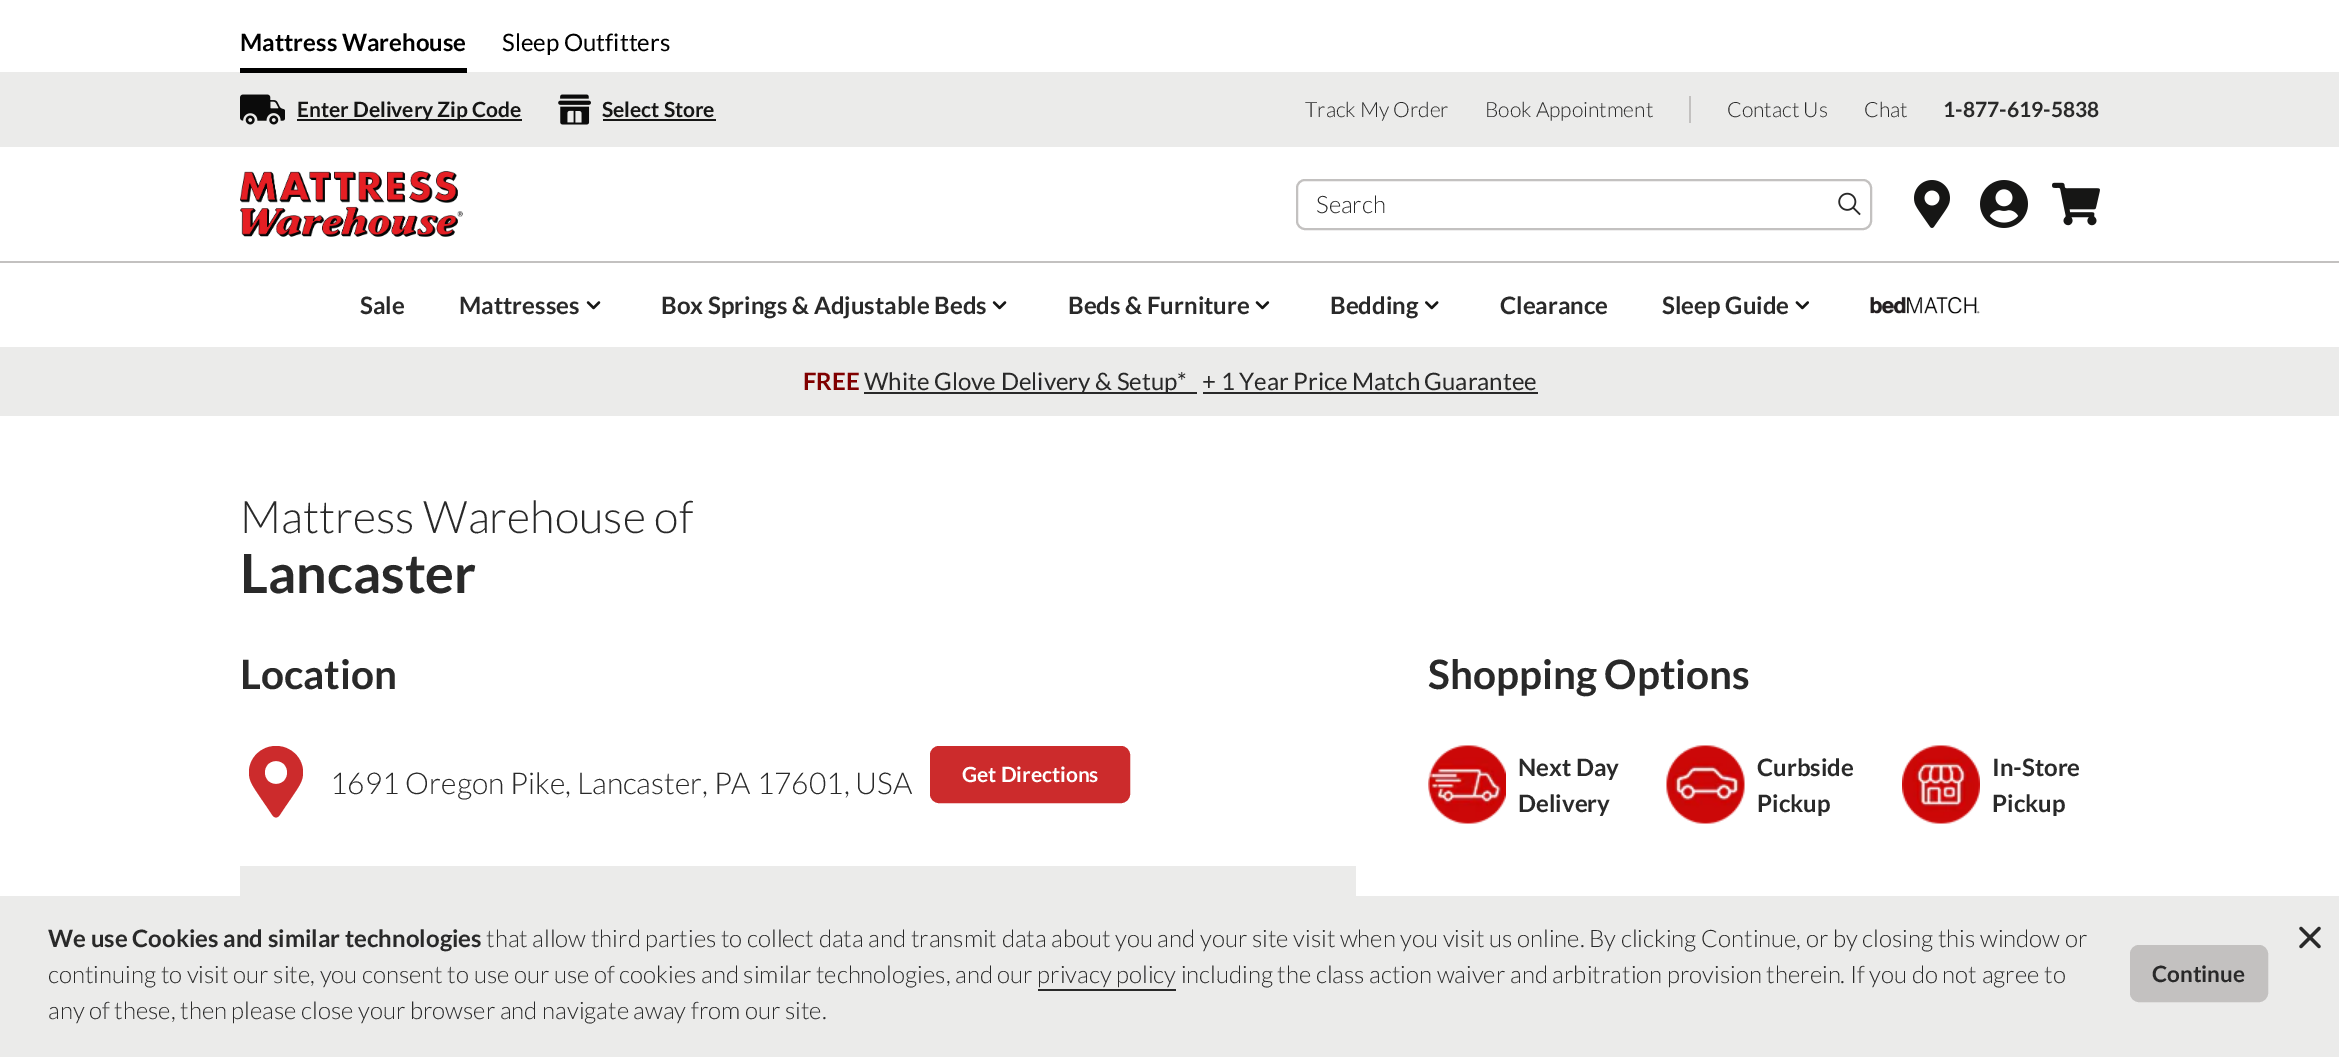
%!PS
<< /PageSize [2339 1057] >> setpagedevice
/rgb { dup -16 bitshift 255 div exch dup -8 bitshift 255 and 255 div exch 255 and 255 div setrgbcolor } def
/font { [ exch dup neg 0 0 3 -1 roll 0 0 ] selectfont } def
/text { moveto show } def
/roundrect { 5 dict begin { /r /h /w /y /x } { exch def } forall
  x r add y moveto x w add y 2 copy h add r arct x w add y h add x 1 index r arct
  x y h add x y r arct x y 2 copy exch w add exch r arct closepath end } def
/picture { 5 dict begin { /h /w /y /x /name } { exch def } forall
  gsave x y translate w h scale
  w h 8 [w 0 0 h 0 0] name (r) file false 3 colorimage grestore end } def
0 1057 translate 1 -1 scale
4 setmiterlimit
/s1 { /Lato-Bold 24 font 16#000000 rgb } def
/s2 { /Lato-Regular 24 font 16#000000 rgb } def
/s3 { /Lato-Bold 21 font 16#161615 rgb } def
/s4 { /Lato-Light 21 font 16#292929 rgb } def
/s5 { /Lato-Bold 21 font 16#292929 rgb } def
/s6 { /Lato-Light 24 font 16#292929 rgb } def
/s7 { /Lato-Bold 24 font 16#292929 rgb } def
/s8 { /Lato-Bold 24 font 16#800000 rgb } def
/s9 { /Lato-Regular 24 font 16#292929 rgb } def
/s10 { /Lato-Light 45 font 16#292929 rgb } def
/s11 { /Lato-Bold 54 font 16#292929 rgb } def
/s12 { /Lato-Bold 40.5 font 16#292929 rgb } def
/s13 { /Lato-Light 30 font 16#292929 rgb } def
/s14 { /Lato-Bold 21 font 16#FFFFFF rgb } def
/s15 { /Lato-Bold 22.5 font 16#292929 rgb } def
16#FFFFFF rgb
0 0 2339 1057 rectfill
s1
(Mattress Warehouse) 240 51 text
16#EBEBEA rgb
0 72 2339 75 rectfill
16#000000 rgb
240 68 227 5 rectfill
s2
(Sleep Outfitters) 502 51 text
(pic1.raw) 240 94 45 31 picture
16#161615 rgb
297 119 225 2 rectfill
s3
(Enter Delivery Zip Code) 297 117 text
(pic2.raw) 558 94 33 31 picture
(Select Store) 602 117 text
603 119 113 2 rectfill
s4
(Track My Order) 1305 117 text
(Book Appointment) 1485 117 text
16#C3C1C0 rgb
1689 96 2 27 rectfill
s4
(Contact Us) 1727 117 text
(Chat) 1864 117 text
s5
(1-877-619-5838) 1943 117 text
16#C3C1C0 rgb
0 261 2339 2 rectfill
(pic3.raw) 240 171 223 66 picture
2 setlinewidth
1297 180 574 49 8 roundrect stroke
s6
(Search) 1316 213 text
(pic4.raw) 1838 192 23 24 picture
(pic5.raw) 1914 180 36 48 picture
(pic6.raw) 1980 180 48 48 picture
(pic7.raw) 2052 182 48 44 picture
s7
(Sale) 360 314 text
(Mattresses) 459 314 text
(pic8.raw) 586 301 15 9 picture
(Box Springs & Adjustable Beds) 661 314 text
(pic9.raw) 992 301 15 9 picture
(Beds & Furniture) 1068 314 text
(pic10.raw) 1255 301 15 9 picture
(Bedding) 1330 314 text
(pic11.raw) 1425 301 14 9 picture
(Clearance) 1500 314 text
(Sleep Guide) 1662 314 text
(pic12.raw) 1795 301 15 9 picture
(pic13.raw) 1870 296 110 18 picture
16#EBEBEA rgb
0 347 2339 69 rectfill
s8
(FREE) 803 390 text
16#292929 rgb
864 392 333 2 rectfill
s9
(White Glove Delivery & Setup*) 864 390 text
(+ 1 Year Price Match Guarantee) 1202 390 text
1203 392 335 2 rectfill
s10
(Mattress Warehouse of) 240 533 text
s11
(Lancaster) 240 593 text
s12
(Location) 240 689 text
16#CC2B2C rgb
273 816 moveto 253 786 249 783 249 772 curveto 249 758 261 746 276 746 curveto 291 746 303 758 303 772 curveto 303 783 299 786 279 816 curveto 277 818 275 818 273 816 curveto closepath 276 784 moveto 291 784 291 761 276 761 curveto 261 761 261 784 276 784 curveto closepath fill
s13
(1691 Oregon Pike, Lancaster, PA 17601, USA) 330 794 text
16#CC2B2C rgb
931 747 198 55 8 roundrect gsave fill grestore
stroke
s14
(Get Directions) 962 782 text
16#EBEBEA rgb
240 866 1116 30 rectfill
s12
(Shopping Options) 1428 689 text
(pic14.raw) 1428 745 78 79 picture
s7
(Next Day) 1518 776 text
(Delivery) 1518 812 text
(pic15.raw) 1666 745 79 79 picture
(Curbside) 1757 776 text
(Pickup) 1757 812 text
(pic16.raw) 1902 745 78 79 picture
(In-Store) 1992 776 text
(Pickup) 1992 812 text
16#EBEBEA rgb
0 896 2339 161 rectfill
s7
(We use Cookies and similar technologies) 48 947 text
s6
(that allow third parties to collect data and transmit data about you and your site visit when you visit us online. By clicking Continue, or by closing this window or) 486 947 text
(continuing to visit our site, you consent to use our use of cookies and similar technologies, and our privacy policy including the class action waiver and arbitration provision therein. If you do not agree to) 48 983 text
1038 989 138 2 rectfill
(any of these, then please close your browser and navigate away from our site.) 48 1019 text
16#C3C1C0 rgb
2131 946 136 55 8 roundrect gsave fill grestore
stroke
s15
(Continue) 2152 982 text
(pic17.raw) 2299 926 22 23 picture
showpage
